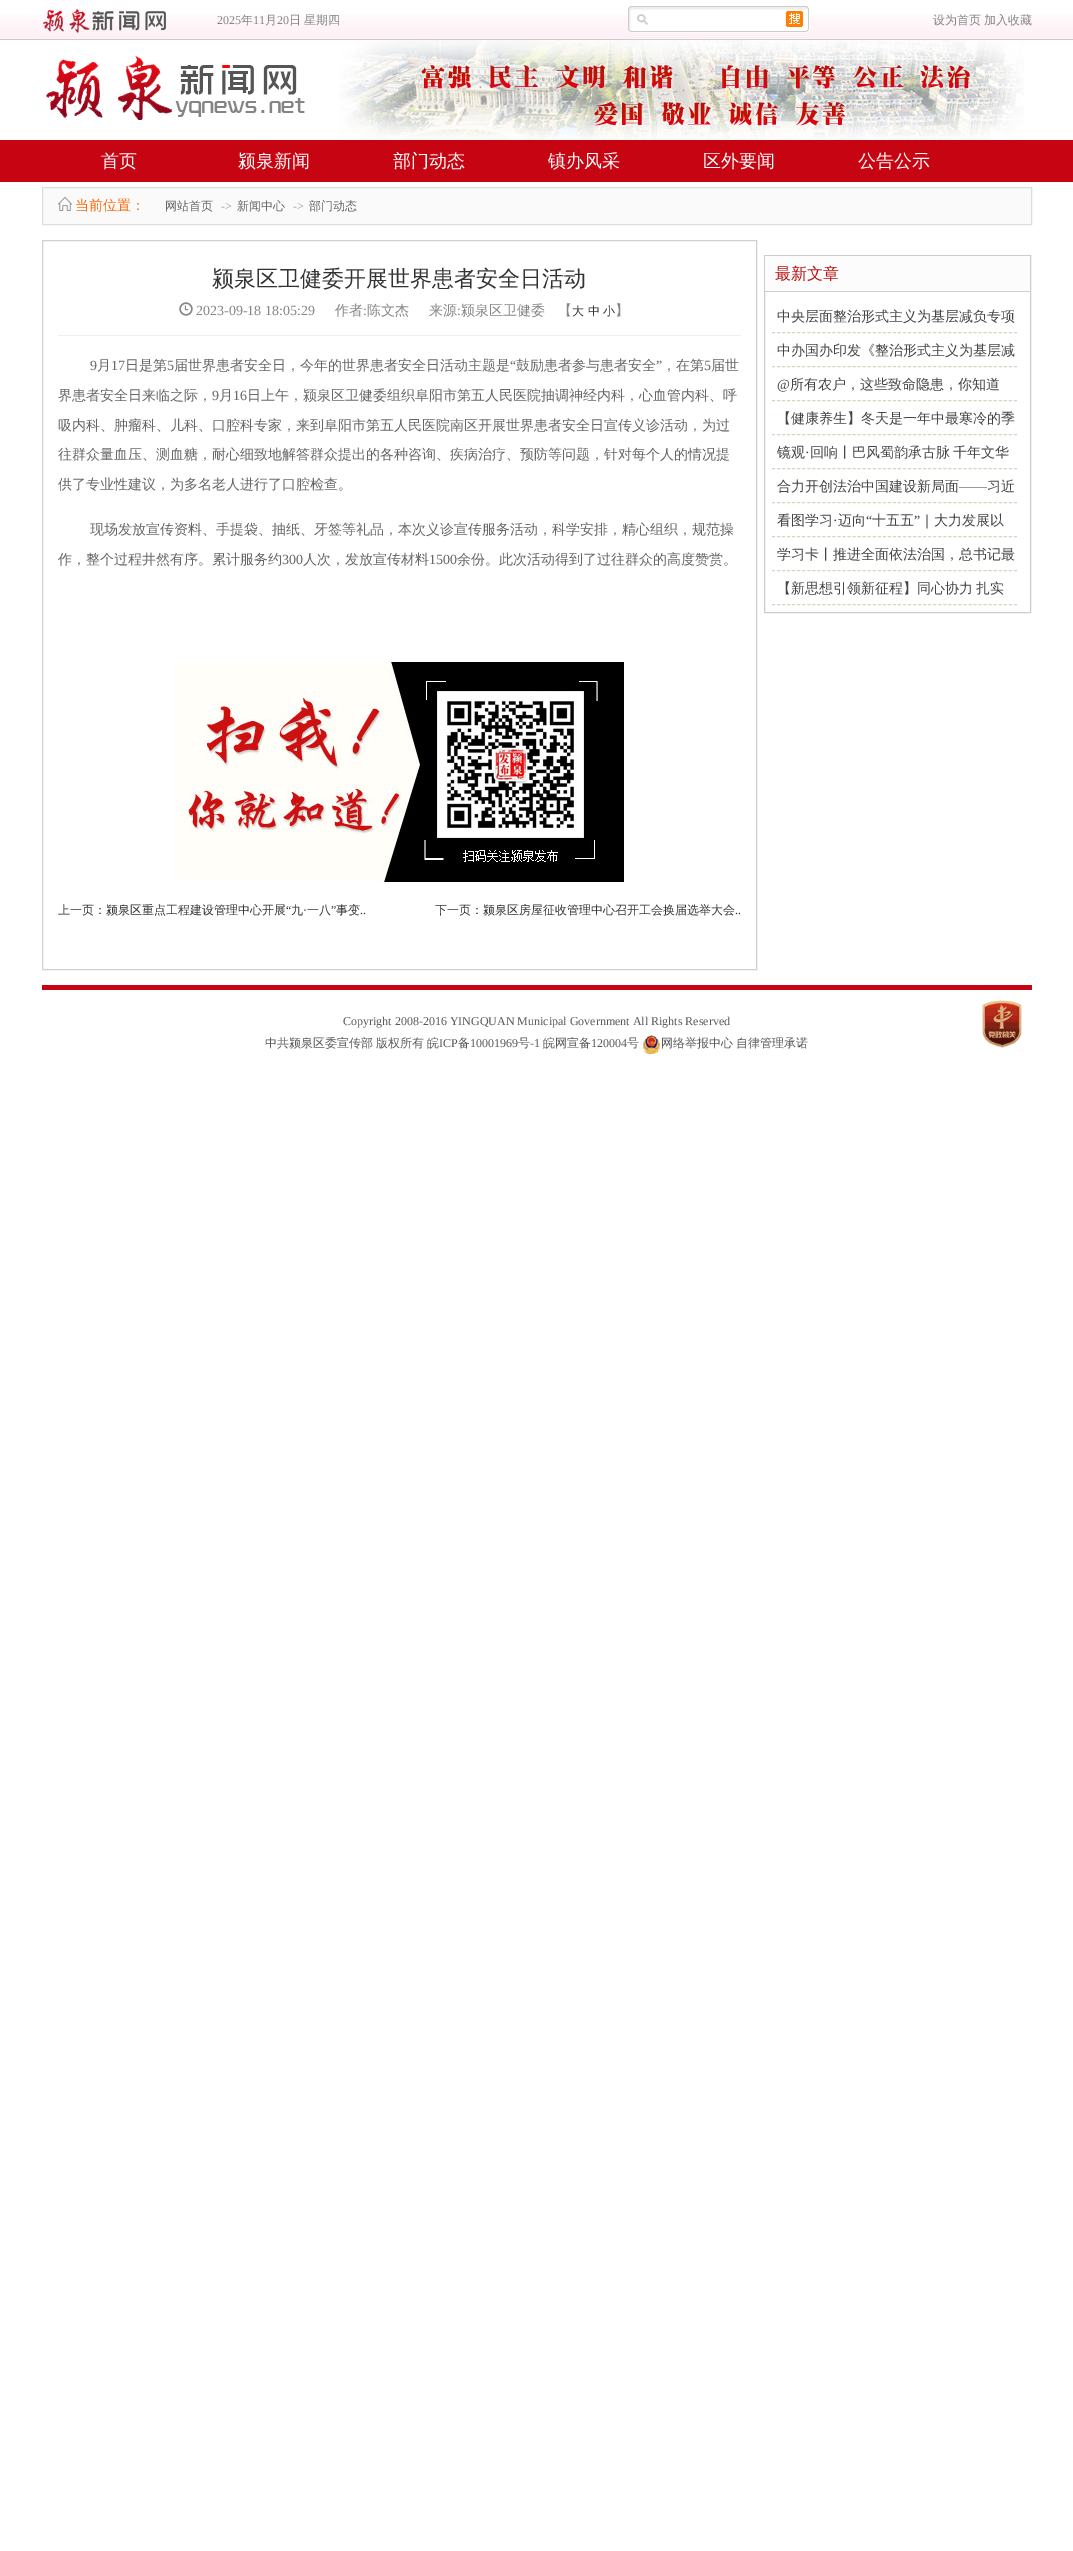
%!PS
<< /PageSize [1073 2551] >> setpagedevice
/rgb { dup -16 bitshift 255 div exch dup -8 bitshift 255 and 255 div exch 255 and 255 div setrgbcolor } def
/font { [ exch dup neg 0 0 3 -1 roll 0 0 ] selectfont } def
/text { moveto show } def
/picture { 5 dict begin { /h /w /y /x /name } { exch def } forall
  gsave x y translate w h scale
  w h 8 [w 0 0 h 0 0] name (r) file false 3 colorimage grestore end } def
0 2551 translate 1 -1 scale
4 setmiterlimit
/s1 { /LiberationSerif-Regular 12 font 16#848784 rgb } def
/s2 { /WenQuanYiZenHei-Medium 12 font 16#848784 rgb } def
/s3 { /WenQuanYiZenHei-Medium 18 font 16#FFFFFF rgb } def
/s4 { /WenQuanYiZenHei-Medium 14 font 16#FF6600 rgb } def
/s5 { /WenQuanYiZenHei-Medium 12 font 16#666666 rgb } def
/s6 { /LiberationSerif-Regular 12 font 16#999999 rgb } def
/s7 { /WenQuanYiZenHei-Medium 22 font 16#333333 rgb } def
/s8 { /LiberationSerif-Regular 14 font 16#848784 rgb } def
/s9 { /WenQuanYiZenHei-Medium 14 font 16#848784 rgb } def
/s10 { /WenQuanYiZenHei-Medium 12 font 16#333333 rgb } def
/s11 { /LiberationSerif-Regular 14 font 16#666666 rgb } def
/s12 { /WenQuanYiZenHei-Medium 14 font 16#666666 rgb } def
/s13 { /LiberationSerif-Regular 12 font 16#333333 rgb } def
/s14 { /WenQuanYiZenHei-Medium 16 font 16#BA100D rgb } def
/s15 { /WenQuanYiZenHei-Medium 14 font 16#444444 rgb } def
/s16 { /LiberationSerif-Regular 14 font 16#444444 rgb } def
/s17 { /LiberationSerif-Regular 12 font 16#595959 rgb } def
/s18 { /WenQuanYiZenHei-Medium 12 font 16#595959 rgb } def
16#FFFFFF rgb
0 0 1073 2551 rectfill
(pic1.raw) 0 14 1073 26 picture
(pic2.raw) 42 8 124 25 picture
s1
(2025) 217 24 text
s2
(年) 241 24 text
s1
(11) 253 24 text
s2
(月) 265 24 text
s1
(20) 277 24 text
s2
(日) 289 24 text
(星期四) 304 24 text
(pic3.raw) 628 6 182 27 picture
(设为首页) 933 24 text
(加入收藏) 984 24 text
(pic4.raw) 340 40 684 100 picture
(pic5.raw) 46 56 259 64 picture
16#C70412 rgb
0 140 1073 42 rectfill
s3
(首页) 101 167 text
(颍泉新闻) 238 167 text
(部门动态) 393 167 text
(镇办风采) 548 167 text
(区外要闻) 703 167 text
(公告公示) 858 167 text
16#FAFAFA rgb
42.5 187.5 moveto 1031.5 187.5 lineto 1031.5 224.5 lineto 42.5 224.5 lineto closepath gsave fill grestore
16#DDDDDD rgb
stroke
(pic6.raw) 58 197 14 14 picture
s4
(当前位置：) 75 210 text
s5
(网站首页) 165 210 text
s6
(->) 221 210 text
s5
(新闻中心) 237 210 text
s6
(->) 293 210 text
s5
(部门动态) 309 210 text
16#D0D0D0 rgb
42.5 240.5 714 729 rectstroke
s7
(颍泉区卫健委开展世界患者安全日活动) 212 286 text
16#EEEEEE rgb
58 335 683 1 rectfill
(pic7.raw) 179 302 14 14 picture
s8
(2023-09-18 18:05:29) 196 315 text
s9
(作者) 335 315 text
s8
(:) 363 315 text
s9
(陈文杰) 367 315 text
(来源) 429 315 text
s8
(:) 457 315 text
s9
(颍泉区卫健委) 461 315 text
(【) 558 315 text
s10
(大 中 小) 572 315 text
s9
(】) 615 315 text
s11
(9) 90 370 text
s12
(月) 97 370 text
s11
(17) 111 370 text
s12
(日是第) 125 370 text
s11
(5) 167 370 text
s12
(届世界患者安全日，今年的世界患者安全日活动主题是) 174 370 text
s11
(“) 510 370 text
s12
(鼓励患者参与患者安全) 516 370 text
s11
(”) 656 370 text
s12
(，在第) 662 370 text
s11
(5) 704 370 text
s12
(届世) 711 370 text
(界患者安全日来临之际，) 58 400 text
s11
(9) 212 400 text
s12
(月) 219 400 text
s11
(16) 233 400 text
s12
(日上午，颍泉区卫健委组织阜阳市第五人民医院抽调神经内科，心血管内科、呼) 247 400 text
(吸内科、肿瘤科、儿科、口腔科专家，来到阜阳市第五人民医院南区开展世界患者安全日宣传义诊活动，为过) 58 430 text
(往群众量血压、测血糖，耐心细致地解答群众提出的各种咨询、疾病治疗、预防等问题，针对每个人的情况提) 58 459 text
(供了专业性建议，为多名老人进行了口腔检查。) 58 489 text
(现场发放宣传资料、手提袋、抽纸、牙签等礼品，本次义诊宣传服务活动，科学安排，精心组织，规范操) 90 534 text
(作，整个过程井然有序。累计服务约) 58 564 text
s11
(300) 282 564 text
s12
(人次，发放宣传材料) 303 564 text
s11
(1500) 429 564 text
s12
(余份。此次活动得到了过往群众的高度赞赏。) 457 564 text
(pic8.raw) 174 662 450 220 picture
s10
(上一页：颍泉区重点工程建设管理中心开展) 58 914 text
s13
(“) 286 914 text
s10
(九) 291 914 text
s13
(·) 303 914 text
s10
(一八) 307 914 text
s13
(”) 331 914 text
s10
(事变) 336 914 text
(下一页：颍泉区房屋征收管理中心召开工会换届选举大会) 435 914 text
s13
(..) 735 914 text
(..) 360 914 text
16#CCCCCC rgb
764.5 255.5 266 357 rectstroke
16#FCFCFC rgb
765 256 265 35 rectfill
16#D0D0D0 rgb
765 291 265 1 rectfill
s14
(最新文章) 775 279 text
16#DDD2C0 rgb
[3 2.04] 0 setdash
772 332.5 moveto 1017 332.5 lineto stroke
s15
(中央层面整治形式主义为基层减负专项) 777 321 text
16#DDD2C0 rgb
772 366.5 moveto 1017 366.5 lineto stroke
s15
(中办国办印发《整治形式主义为基层减) 777 355 text
16#DDD2C0 rgb
772 400.5 moveto 1017 400.5 lineto stroke
s16
(@) 777 389 text
s15
(所有农户，这些致命隐患，你知道) 790 389 text
16#DDD2C0 rgb
772 434.5 moveto 1017 434.5 lineto stroke
s15
(【健康养生】冬天是一年中最寒冷的季) 777 423 text
16#DDD2C0 rgb
772 468.5 moveto 1017 468.5 lineto stroke
s15
(镜观) 777 457 text
s16
(·) 805 457 text
/WenQuanYiZenHei-Medium 14 font
810 457 moveto -1 0 32 (回响丨巴风蜀韵承古脉 千年文华) widthshow
16#DDD2C0 rgb
772 502.5 moveto 1017 502.5 lineto stroke
s15
(合力开创法治中国建设新局面) 777 491 text
s16
(——) 959 491 text
s15
(习近) 987 491 text
16#DDD2C0 rgb
772 536.5 moveto 1017 536.5 lineto stroke
s15
(看图学习) 777 525 text
(迈向) 838 525 text
s16
(“) 866 525 text
s15
(十五五) 872 525 text
s16
(”) 914 525 text
s15
(｜大力发展以) 920 525 text
s16
(·) 833 525 text
16#DDD2C0 rgb
772 570.5 moveto 1017 570.5 lineto stroke
s15
(学习卡丨推进全面依法治国，总书记最) 777 559 text
16#DDD2C0 rgb
772 604.5 moveto 1017 604.5 lineto stroke
16#444444 rgb
777 593 moveto -1 0 32 (【新思想引领新征程】同心协力 扎实) widthshow
16#C70412 rgb
42 985 990 5 rectfill
s17
(Copyright 2008-2016 YINGQUAN Municipal Government All Rights Reserved) 343 1025 text
/WenQuanYiZenHei-Medium 12 font
265 1047 moveto -1 0 32 (中共颍泉区委宣传部 版权所有) widthshow
(皖) 427 1047 text
s17
(ICP) 439 1047 text
s18
(备) 458 1047 text
s17
(10001969) 470 1047 text
s18
(号) 518 1047 text
s17
(-1) 530 1047 text
s18
(皖网宣备) 543 1047 text
s17
(120004) 591 1047 text
s18
(号) 627 1047 text
(pic9.raw) 643 1035 18 19 picture
(网络举报中心) 661 1047 text
(自律管理承诺) 736 1047 text
(pic10.raw) 982 1000 40 48 picture
showpage
